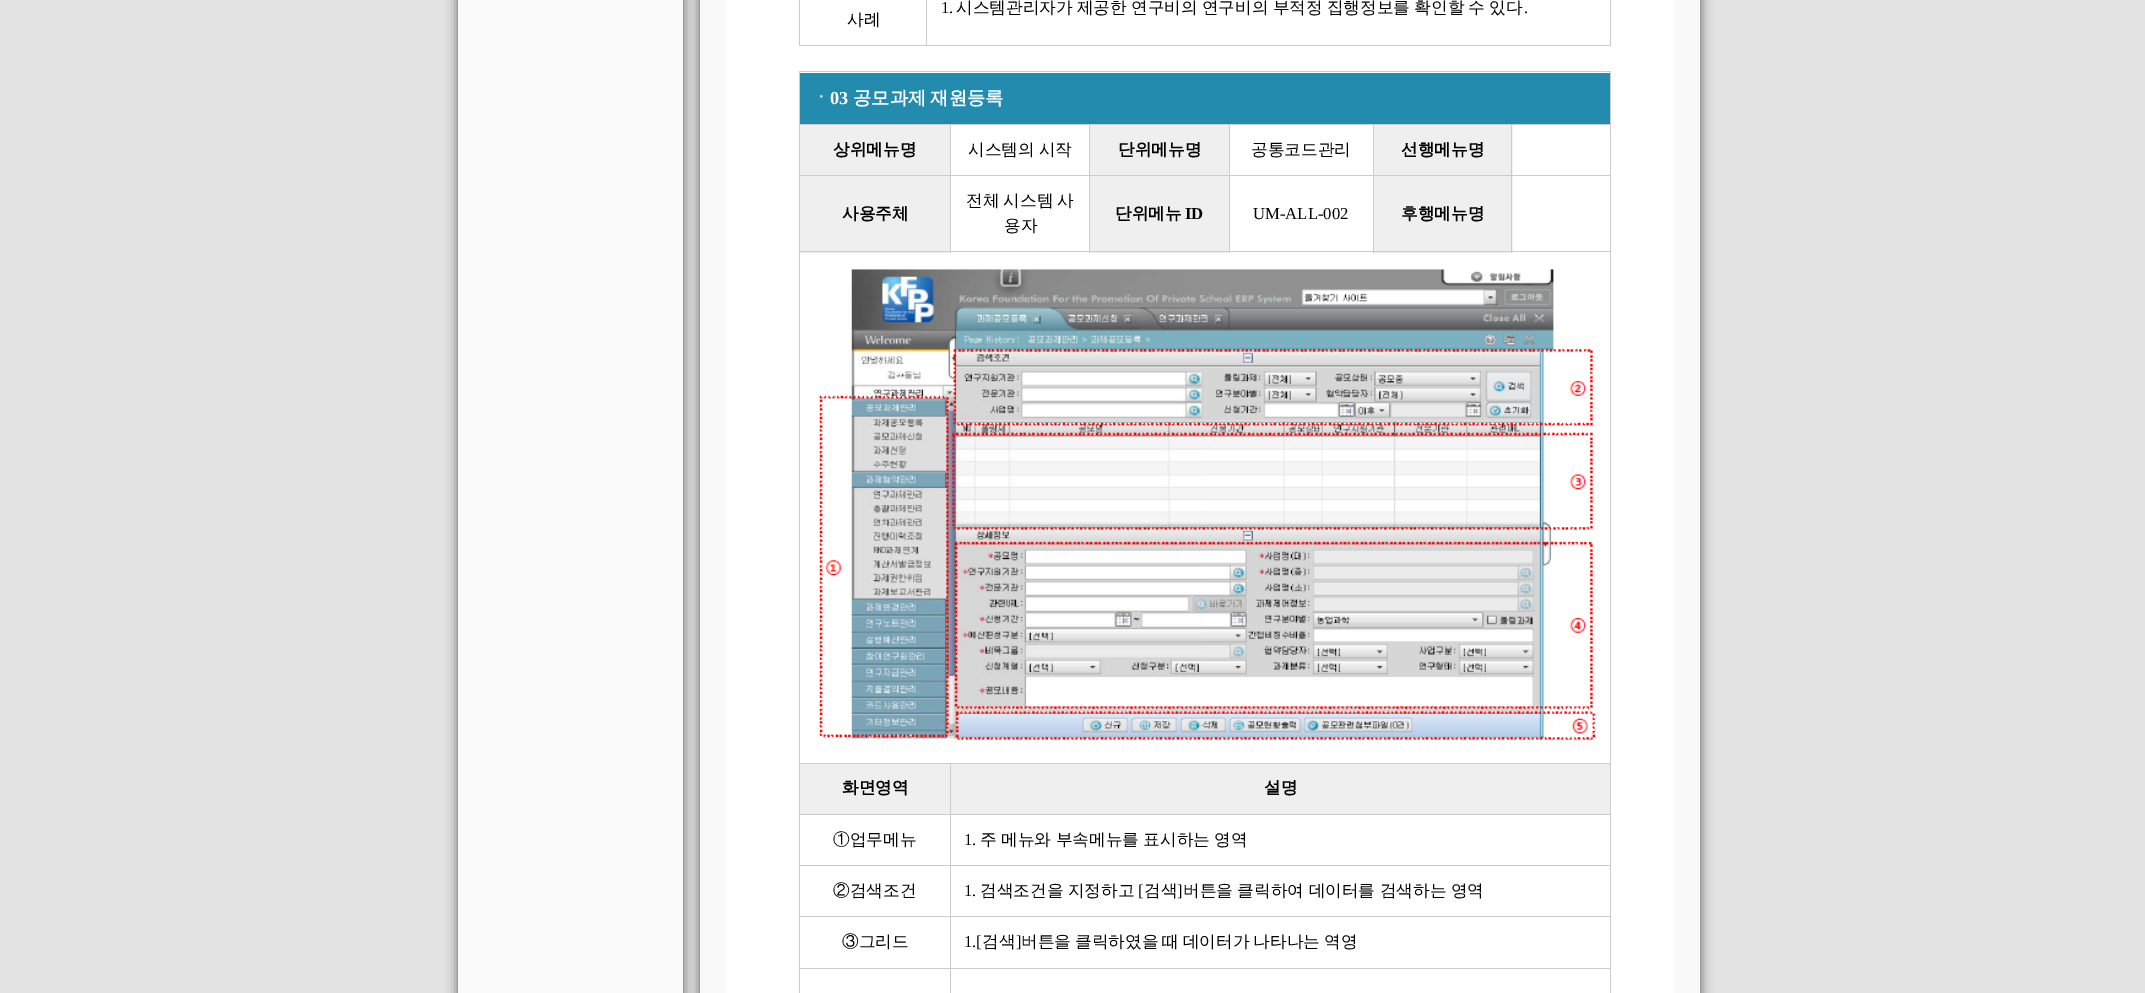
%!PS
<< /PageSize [2145 993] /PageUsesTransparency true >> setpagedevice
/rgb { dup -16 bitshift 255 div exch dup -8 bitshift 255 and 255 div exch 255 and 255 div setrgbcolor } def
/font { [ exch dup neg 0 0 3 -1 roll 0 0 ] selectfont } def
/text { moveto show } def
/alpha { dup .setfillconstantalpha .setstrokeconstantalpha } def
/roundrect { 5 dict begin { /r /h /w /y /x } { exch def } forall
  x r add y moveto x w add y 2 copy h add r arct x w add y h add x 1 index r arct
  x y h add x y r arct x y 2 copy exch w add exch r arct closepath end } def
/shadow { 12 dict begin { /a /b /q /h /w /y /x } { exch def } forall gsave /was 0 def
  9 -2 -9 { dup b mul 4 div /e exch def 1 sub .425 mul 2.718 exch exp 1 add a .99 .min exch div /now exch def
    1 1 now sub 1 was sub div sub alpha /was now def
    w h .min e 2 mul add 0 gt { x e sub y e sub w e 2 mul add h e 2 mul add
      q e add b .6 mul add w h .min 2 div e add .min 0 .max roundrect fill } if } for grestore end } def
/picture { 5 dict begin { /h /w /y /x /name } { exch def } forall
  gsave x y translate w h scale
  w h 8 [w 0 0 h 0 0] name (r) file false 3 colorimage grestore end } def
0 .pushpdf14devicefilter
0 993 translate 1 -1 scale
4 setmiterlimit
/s1 { /LiberationSerif-Regular 16.65 font 16#000000 rgb } def
/s2 { /WenQuanYiZenHei-Medium 16.65 font 16#000000 rgb } def
/s3 { /WenQuanYiZenHei-Bold 18.25 font 16#FFFFFF rgb } def
/s4 { /LiberationSerif-Bold 18.25 font 16#FFFFFF rgb } def
/s5 { /WenQuanYiZenHei-Bold 16.65 font 16#000000 rgb } def
/s6 { /LiberationSerif-Bold 16.65 font 16#000000 rgb } def
16#E3E3E3 rgb
0 0 2145 993 rectfill
16#565656 rgb
458 -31 225 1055 13 6 1 shadow
16#FAFAFA rgb
458 0 225 993 rectfill
16#333333 rgb
700 -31 1000 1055 13 6 0.8 shadow
16#F9F9F9 rgb
700 0 1000 993 rectfill
16#FFFFFF rgb
725 0 950 993 rectfill
16#CCCCCC rgb
1610 0 1 46 rectfill
799 45 812 1 rectfill
799 0 1 46 rectfill
926 0 1 46 rectfill
s1
(1.) 941 13 text
/WenQuanYiZenHei-Medium 16.65 font
956 13 moveto -0.75 0 32 (시스템관리자가 제공한 연구비의 연구비의 부적정 집행정보를 확인할 수 있다) widthshow
s1
(.) 1524 13 text
s2
(사례) 847 25 text
16#CCCCCC rgb
799 71 812 1 rectfill
1610 71 1 922 rectfill
799 71 1 922 rectfill
16#238BAD rgb
800 73 810 51 rectfill
s3
(ㆍ) 812 104 text
s4
(03) 830 104 text
/WenQuanYiZenHei-Bold 18.25 font
853 104 moveto -1 0 32 (공모과제 재원등록) widthshow
16#EFEFEF rgb
800 125 150 50 rectfill
16#CCCCCC rgb
1511 124 100 1 rectfill
16#EFEFEF rgb
1374 125 139 50 rectfill
16#CCCCCC rgb
1511 175 100 1 rectfill
16#EFEFEF rgb
1374 176 139 77 rectfill
800 176 150 77 rectfill
1090 176 139 77 rectfill
16#CCCCCC rgb
799 251 812 1 rectfill
1511 175 1 78 rectfill
1373 175 140 1 rectfill
1511 124 1 52 rectfill
1373 124 140 1 rectfill
1373 175 1 78 rectfill
1229 175 145 1 rectfill
1373 124 1 52 rectfill
1229 124 145 1 rectfill
1229 175 1 78 rectfill
1089 175 141 1 rectfill
1229 124 1 52 rectfill
1089 124 141 1 rectfill
1089 175 1 78 rectfill
950 175 140 1 rectfill
1089 124 1 52 rectfill
950 124 140 1 rectfill
950 175 1 78 rectfill
799 175 152 1 rectfill
950 124 1 52 rectfill
799 124 152 1 rectfill
s5
(상위메뉴명) 833 155 text
/WenQuanYiZenHei-Medium 16.65 font
968 155 moveto -1 0 32 (시스템의 시작) widthshow
16#EFEFEF rgb
1090 125 139 50 rectfill
s5
(단위메뉴명) 1118 155 text
s2
(공통코드관리) 1251 155 text
s5
(선행메뉴명) 1401 155 text
(사용주체) 842 219 text
/WenQuanYiZenHei-Medium 16.65 font
966 206 moveto -1 0 32 (전체 시스템 사) widthshow
(용자) 1004 231 text
s5
(단위메뉴) 1115 219 text
s6
(ID) 1185 219 text
s1
(UM-ALL-002) 1253 219 text
s5
(후행메뉴명) 1401 219 text
(pic1.raw) 819 269 777 471 picture
16#EFEFEF rgb
800 764 810 50 rectfill
16#CCCCCC rgb
950 763 661 1 rectfill
950 814 661 1 rectfill
950 865 661 1 rectfill
950 916 661 1 rectfill
950 968 661 1 rectfill
950 968 1 25 rectfill
799 968 152 1 rectfill
950 916 1 53 rectfill
799 916 152 1 rectfill
950 865 1 53 rectfill
799 865 152 1 rectfill
950 814 1 52 rectfill
799 814 152 1 rectfill
950 763 1 52 rectfill
799 763 152 1 rectfill
s5
(화면영역) 842 793 text
(설명) 1264 793 text
s2
(①업무메뉴) 833 845 text
s1
(1.) 964 845 text
/WenQuanYiZenHei-Medium 16.65 font
980 845 moveto -0.5 0 32 (주 메뉴와 부속메뉴를 표시하는 영역) widthshow
(②검색조건) 833 896 text
s1
(1.) 964 896 text
/WenQuanYiZenHei-Medium 16.65 font
980 896 moveto -0.5 0 32 (검색조건을 지정하고) widthshow
s1
([) 1138 896 text
s2
(검색) 1144 896 text
s1
(]) 1177 896 text
/WenQuanYiZenHei-Medium 16.65 font
1183 896 moveto -0.5 0 32 (버튼을 클릭하여 데이터를 검색하는 영역) widthshow
(③그리드) 842 947 text
s1
(1.[) 964 947 text
s2
(검색) 982 947 text
s1
(]) 1016 947 text
/WenQuanYiZenHei-Medium 16.65 font
1021 947 moveto -1 0 32 (버튼을 클릭하였을 때 데이터가 나타나는 역영) widthshow
.poppdf14devicefilter showpage
